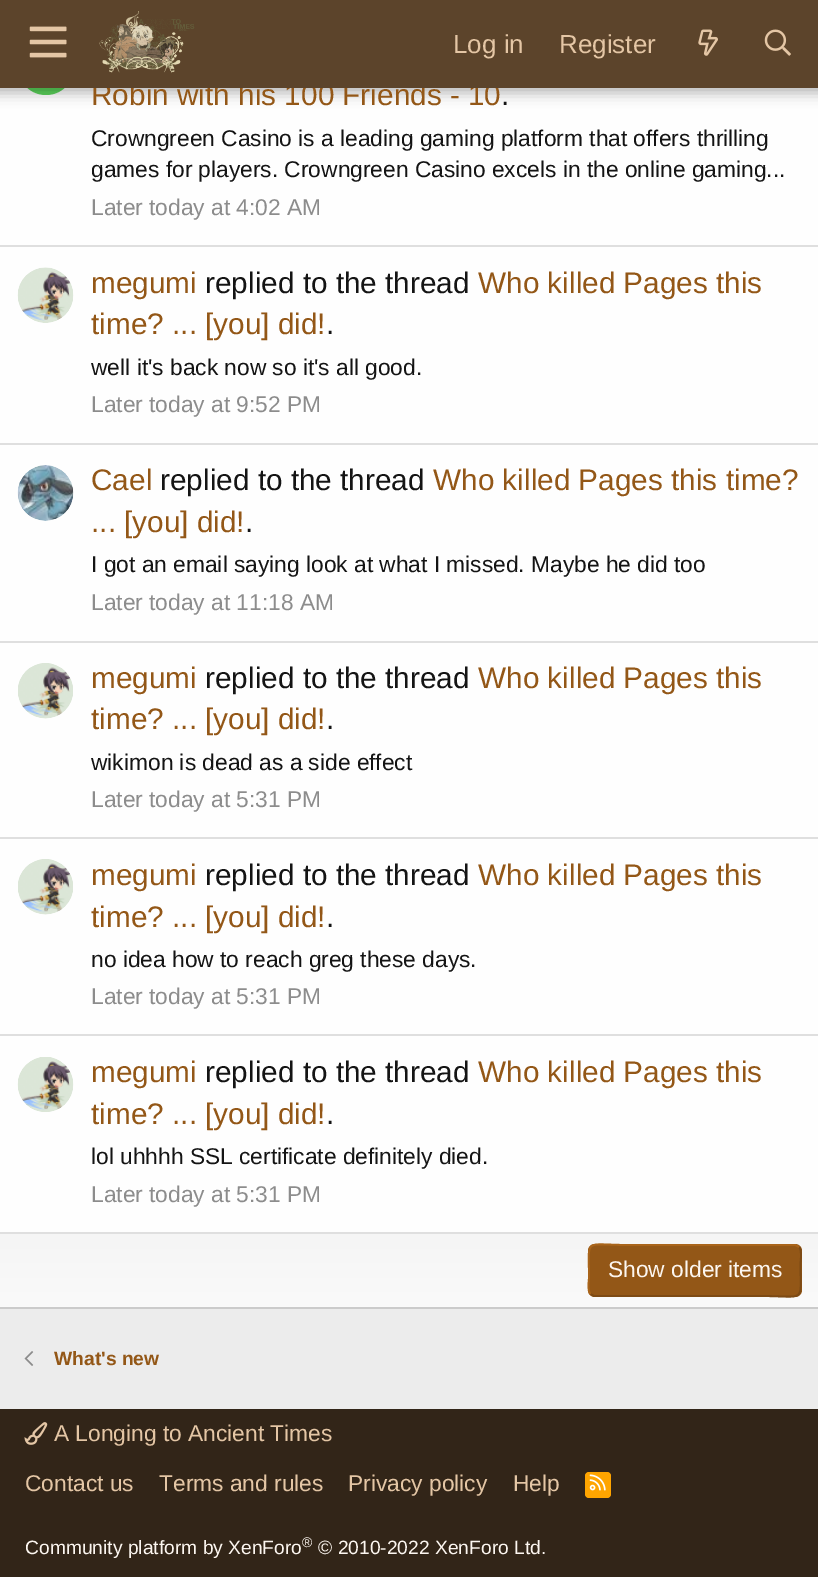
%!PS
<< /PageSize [818 1577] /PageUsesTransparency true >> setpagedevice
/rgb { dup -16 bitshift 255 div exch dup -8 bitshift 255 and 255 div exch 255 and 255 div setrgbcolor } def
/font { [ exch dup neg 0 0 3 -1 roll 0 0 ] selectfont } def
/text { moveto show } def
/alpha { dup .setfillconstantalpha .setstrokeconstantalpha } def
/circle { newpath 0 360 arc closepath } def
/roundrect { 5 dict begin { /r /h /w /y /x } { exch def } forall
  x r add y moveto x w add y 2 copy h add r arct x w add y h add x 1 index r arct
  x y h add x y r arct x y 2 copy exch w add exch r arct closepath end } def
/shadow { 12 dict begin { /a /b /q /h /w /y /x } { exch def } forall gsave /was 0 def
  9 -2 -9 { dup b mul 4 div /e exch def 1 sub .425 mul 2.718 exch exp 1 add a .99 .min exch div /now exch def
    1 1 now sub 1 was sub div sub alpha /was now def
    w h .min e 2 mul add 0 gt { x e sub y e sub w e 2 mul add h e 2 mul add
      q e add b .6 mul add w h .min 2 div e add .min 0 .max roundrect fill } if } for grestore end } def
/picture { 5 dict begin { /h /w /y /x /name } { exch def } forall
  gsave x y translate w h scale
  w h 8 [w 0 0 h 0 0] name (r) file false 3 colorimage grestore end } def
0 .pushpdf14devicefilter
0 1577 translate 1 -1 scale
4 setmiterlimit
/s1 { /LiberationSans-Regular 29.75 font 16#935717 rgb } def
/s2 { /LiberationSans-Regular 26 font 16#E4C6A5 rgb } def
/s3 { /LiberationSans-Regular 29.75 font 16#141414 rgb } def
/s4 { /LiberationSans-Regular 22.75 font 16#141414 rgb } def
/s5 { /LiberationSans-Regular 22.75 font 16#8C8C8C rgb } def
/s6 { /LiberationSans-Regular 22.75 font 16#FCF6F0 rgb } def
/s7 { /LiberationSans-Bold 19.25 font 16#935717 rgb } def
/s8 { /LiberationSans-Regular 22.75 font 16#E4C6A5 rgb } def
/s9 { /LiberationSans-Regular 19.25 font 16#FCF6F0 rgb } def
/s10 { /LiberationSans-Regular 14 font 16#FCF6F0 rgb } def
16#ECECEC rgb
0 0 818 1577 rectfill
16#FEFEFE rgb
0 88 818 1144 rectfill
16#5CD65C rgb
46 67 28 circle fill
16#000000 rgb
-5 -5 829 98 0 7 0.3 shadow
s1
(Robin with his 100 Friends - 10) 91 105 text
16#5C442B rgb
0 0 818 88 rectfill
(pic1.raw) 29 26 38 32 picture
(pic2.raw) 99 11 96 62 picture
s2
(Log in) 453 53 text
(Register) 559 53 text
(pic3.raw) 698 29 20 27 picture
(pic4.raw) 764 29 27 27 picture
16#CBCBCB rgb
0 1307 818 2 rectfill
s3
(.) 501 105 text
s4
(Crowngreen Casino is a leading gaming platform that offers thrilling) 91 146 text
(games for players. Crowngreen Casino excels in the online gaming...) 91 177 text
s5
(Later today at 4:02 AM) 91 215 text
16#DFDFDF rgb
0 245 818 2 rectfill
(pic5.raw) 17 267 57 56 picture
s1
(megumi) 91 293 text
s3
(replied to the thread) 205 293 text
s1
(Who killed Pages this) 478 293 text
(time? ... [you] did!) 91 334 text
s3
(.) 326 334 text
s4
(well it's back now so it's all good.) 91 375 text
s5
(Later today at 9:52 PM) 91 412 text
16#DFDFDF rgb
0 443 818 2 rectfill
(pic6.raw) 17 465 57 56 picture
s1
(Cael) 91 490 text
s3
(replied to the thread) 160 490 text
s1
(Who killed Pages this time?) 433 490 text
(... [you] did!) 91 532 text
s3
(.) 245 532 text
s4
(I got an email saying look at what I missed. Maybe he did too) 91 572 text
s5
(Later today at 11:18 AM) 91 610 text
16#DFDFDF rgb
0 641 818 2 rectfill
(pic7.raw) 18 663 55 56 picture
s1
(megumi) 91 688 text
s3
(replied to the thread) 205 688 text
s1
(Who killed Pages this) 478 688 text
(time? ... [you] did!) 91 729 text
s3
(.) 326 729 text
s4
(wikimon is dead as a side effect) 91 770 text
s5
(Later today at 5:31 PM) 91 807 text
16#DFDFDF rgb
0 837 818 2 rectfill
(pic7.raw) 18 859 55 56 picture
s1
(megumi) 91 885 text
s3
(replied to the thread) 205 885 text
s1
(Who killed Pages this) 478 885 text
(time? ... [you] did!) 91 927 text
s3
(.) 326 927 text
s4
(no idea how to reach greg these days.) 91 967 text
s5
(Later today at 5:31 PM) 91 1004 text
16#DFDFDF rgb
0 1034 818 2 rectfill
(pic8.raw) 17 1057 57 55 picture
s1
(megumi) 91 1082 text
s3
(replied to the thread) 205 1082 text
s1
(Who killed Pages this) 478 1082 text
(time? ... [you] did!) 91 1124 text
s3
(.) 326 1124 text
s4
(lol uhhhh SSL certificate definitely died.) 91 1164 text
s5
(Later today at 5:31 PM) 91 1202 text
gsave 0 1234 moveto 818 1234 lineto 818 1307 lineto 0 1307 lineto closepath clip newpath
<< /ShadingType 2 /ColorSpace /DeviceRGB /Coords [410 1234 410 1307] /Extend [true true] /Function << /FunctionType 2 /Domain [0 1] /C0 [0.961 0.961 0.961] /C1 [0.98 0.98 0.98] /N 1 >> >> shfill grestore
16#DFDFDF rgb
0 1232 818 2 rectfill
16#935717 rgb
588 1244 214 53 7 roundrect fill
16#7D4A14 rgb
1.8 setlinewidth
799 1247 moveto 802.5 1250.5 800.5 1260 800.5 1264 curveto 800.5 1304 806.5 1296 761 1296 curveto 594 1296 lineto 590.5 1294 lineto stroke
16#A9641A rgb
590.5 1294 moveto 587 1290.5 589 1281 589 1277 curveto 589 1237 583 1245 628 1245 curveto 795.5 1245 lineto 799 1247 lineto stroke
s6
(Show older items) 608 1277 text
(pic9.raw) 24 1351 10 15 picture
s7
(What's new) 54 1365 text
16#322518 rgb
0 1409 818 168 rectfill
(pic10.raw) 24 1422 24 23 picture
s8
(A Longing to Ancient Times) 54 1441 text
(Contact us) 25 1491 text
(Terms and rules) 159 1491 text
(Privacy policy) 348 1491 text
(Help) 513 1491 text
16#FFA500 rgb
585 1472 26 26 4 roundrect fill
(pic11.raw) 589 1474 17 17 picture
s9
(Community platform by XenForo) 25 1554 text
s10
(®) 302 1547 text
s9
(© 2010-2022 XenForo Ltd.) 318 1554 text
.poppdf14devicefilter showpage
